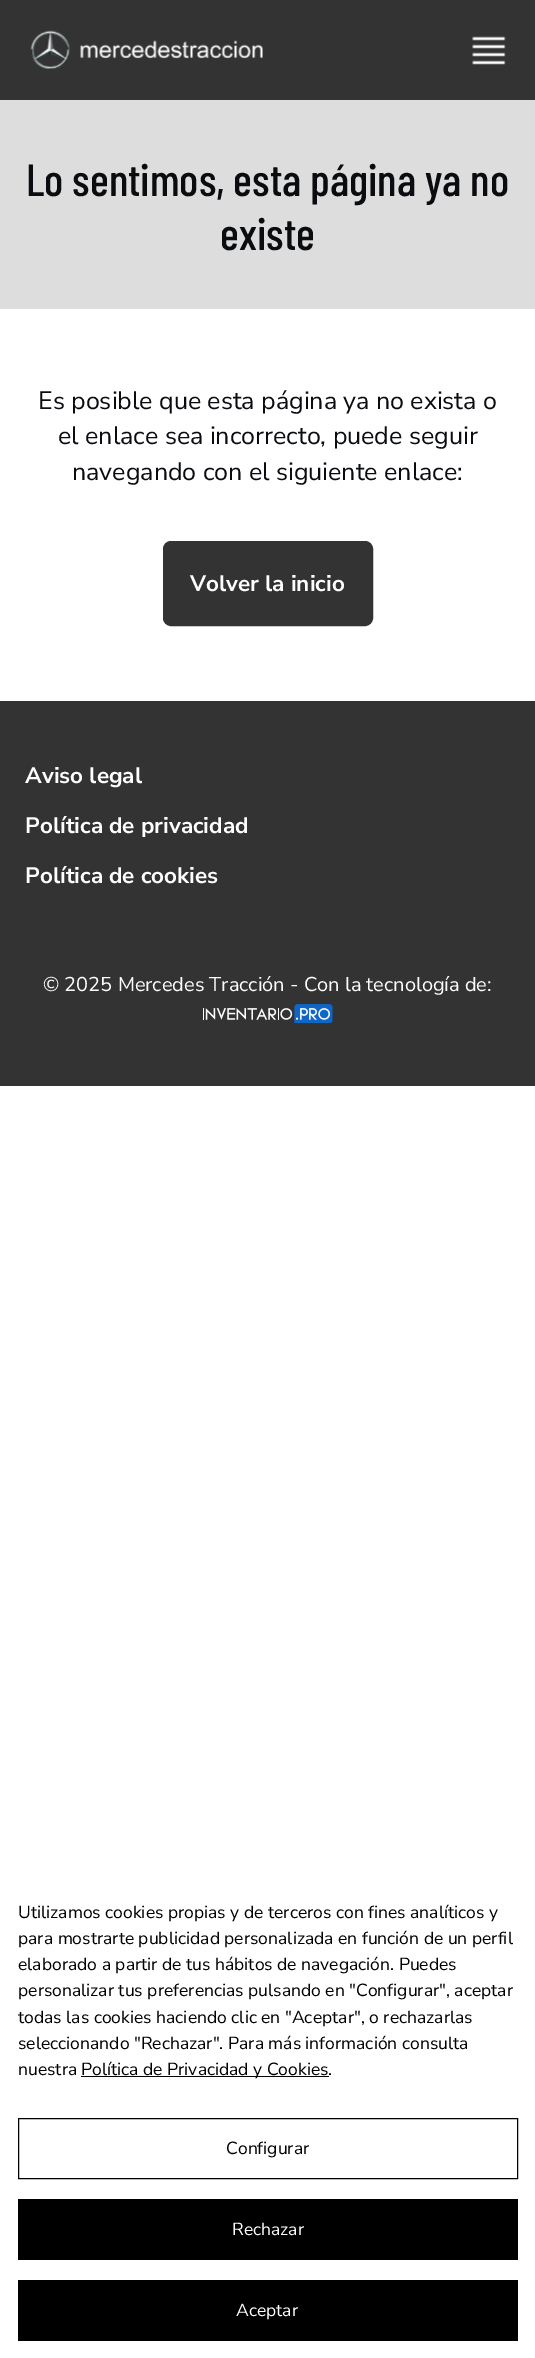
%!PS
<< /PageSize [535 2358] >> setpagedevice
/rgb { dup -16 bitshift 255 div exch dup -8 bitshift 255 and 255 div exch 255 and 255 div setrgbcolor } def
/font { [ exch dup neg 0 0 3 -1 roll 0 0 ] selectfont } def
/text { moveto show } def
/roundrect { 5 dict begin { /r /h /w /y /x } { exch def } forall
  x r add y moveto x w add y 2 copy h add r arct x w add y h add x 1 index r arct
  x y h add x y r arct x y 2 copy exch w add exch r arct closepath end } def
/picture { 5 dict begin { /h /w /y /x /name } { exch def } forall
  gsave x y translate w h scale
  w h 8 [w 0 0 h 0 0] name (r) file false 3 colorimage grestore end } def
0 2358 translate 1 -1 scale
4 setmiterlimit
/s1 { /BarlowCondensed-Medium 45 font 16#0A0C10 rgb } def
/s2 { /NunitoSans-Regular 25 font 16#0A0C10 rgb } def
/s3 { /NunitoSans-Bold 22.5 font 16#FFFFFF rgb } def
/s4 { /NunitoSans-Regular 20 font 16#FFFFFF rgb } def
/s5 { /NunitoSans-Regular 17.5 font 16#000000 rgb } def
/s6 { /NunitoSans-Regular 17.5 font 16#FFFFFF rgb } def
16#FFFFFF rgb
0 0 535 2358 rectfill
16#333333 rgb
0 0 535 100 rectfill
(pic1.raw) 30 30 233 39 picture
(pic2.raw) 472 36 34 29 picture
16#DDDDDD rgb
0 100 535 209 rectfill
s1
(Lo sentimos, esta página ya no) 26 196 text
(existe) 220 250 text
s2
(Es posible que esta página ya no exista o) 38 409 text
(el enlace sea incorrecto, puede seguir) 58 444 text
(navegando con el siguiente enlace:) 72 480 text
16#333333 rgb
164.5 542.5 207 82 6.5 roundrect gsave fill grestore
3 setlinewidth
stroke
s3
(Volver la inicio) 190 591 text
16#333333 rgb
0 701 535 385 rectfill
s3
(Aviso legal) 25 783 text
(Política de privacidad) 25 833 text
(Política de cookies) 25 883 text
s4
(© 2025 Mercedes Tracción - Con la tecnología de:) 43 991 text
(pic3.raw) 203 1004 130 19 picture
s5
(Utilizamos cookies propias y de terceros con fines analíticos y) 18 1918 text
(para mostrarte publicidad personalizada en función de un perfil) 18 1944 text
(elaborado a partir de tus hábitos de navegación. Puedes) 18 1970 text
(personalizar tus preferencias pulsando en "Configurar", aceptar) 18 1996 text
(todas las cookies haciendo clic en "Aceptar", o rechazarlas) 18 2023 text
(seleccionando "Rechazar". Para más información consulta) 18 2049 text
(nuestra) 18 2075 text
81 2076 248 1 rectfill
(Política de Privacidad y Cookies.) 81 2075 text
1 setlinewidth
18.5 2118.5 499 60 rectstroke
(Configurar) 226 2154 text
18 2199 500 61 rectfill
s6
(Rechazar) 232 2235 text
16#000000 rgb
18 2280 500 61 rectfill
s6
(Aceptar) 236 2316 text
showpage
